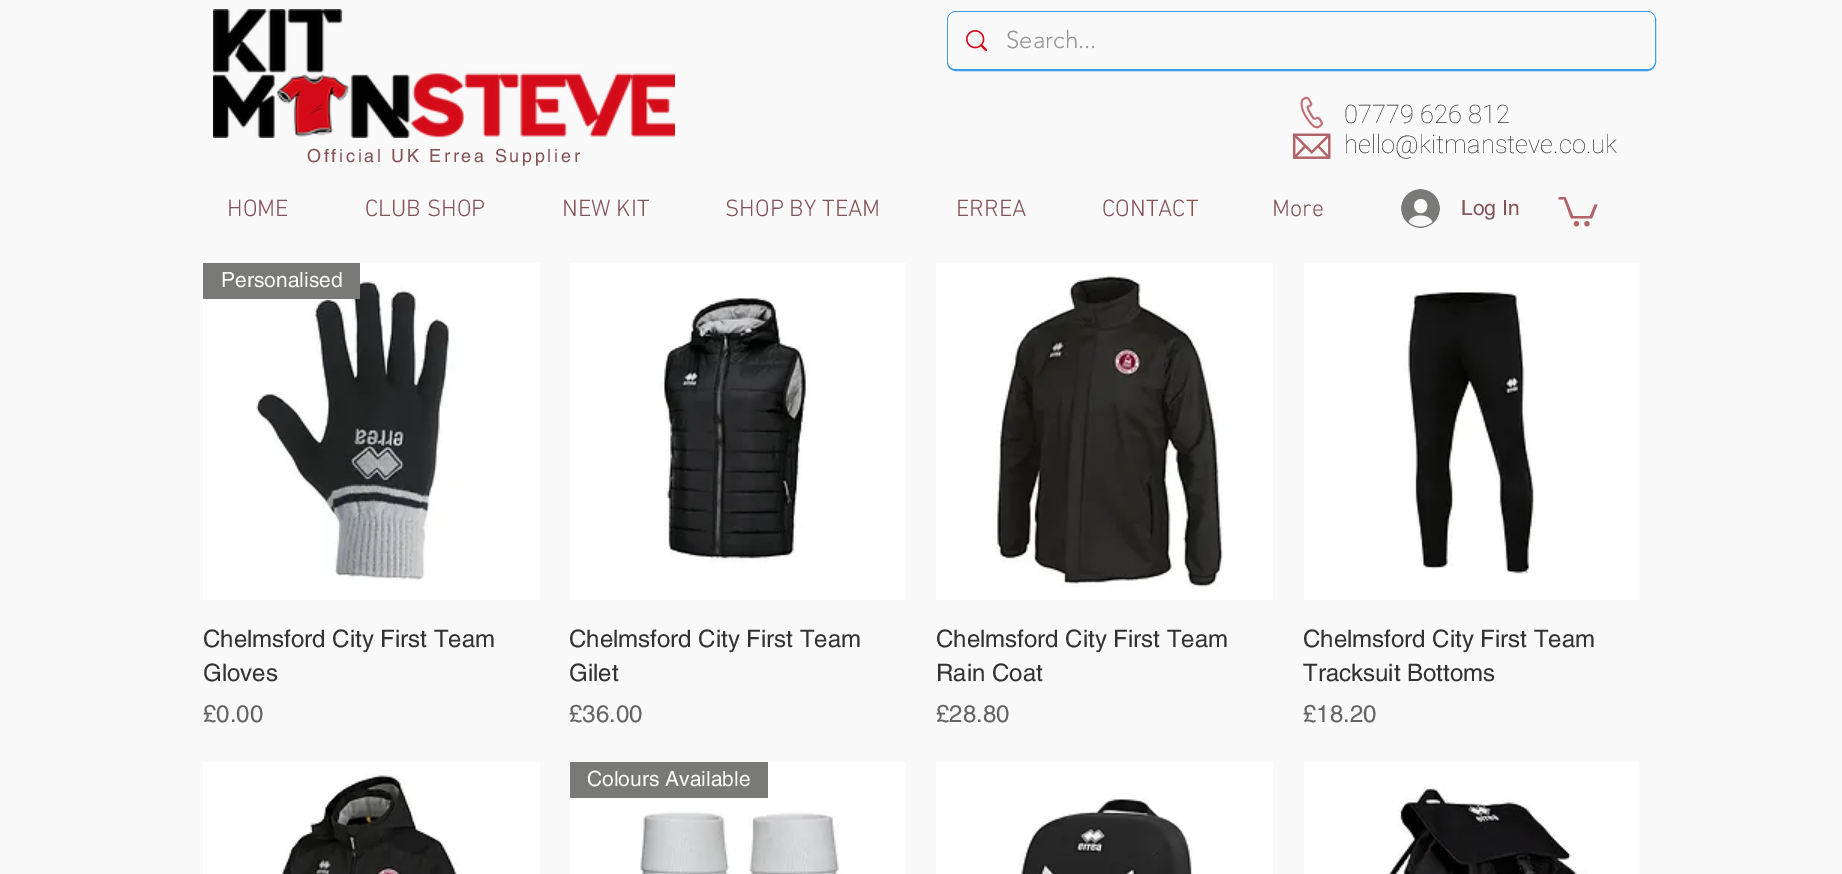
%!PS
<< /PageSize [1842 874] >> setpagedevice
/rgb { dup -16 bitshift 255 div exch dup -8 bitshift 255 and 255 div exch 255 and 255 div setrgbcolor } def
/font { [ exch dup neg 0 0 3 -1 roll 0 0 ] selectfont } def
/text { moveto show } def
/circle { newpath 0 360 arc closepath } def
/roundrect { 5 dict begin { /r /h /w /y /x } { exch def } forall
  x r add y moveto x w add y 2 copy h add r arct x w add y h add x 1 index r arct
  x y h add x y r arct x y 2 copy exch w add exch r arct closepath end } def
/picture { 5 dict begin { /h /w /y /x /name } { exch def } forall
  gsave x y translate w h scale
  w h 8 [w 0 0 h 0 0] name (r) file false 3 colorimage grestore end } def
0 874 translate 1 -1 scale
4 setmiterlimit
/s1 { /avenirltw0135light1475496-Light 24 font 16#959595 rgb } def
/s2 { /Roboto-Thin 25.5 font 16#323232 rgb } def
/s3 { /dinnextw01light-Light 24 font 16#845356 rgb } def
/s4 { /helvetica-Regular 21 font 16#845356 rgb } def
/s5 { /helvetica-Regular 21 font 16#F9F9F9 rgb } def
/s6 { /helvetica-Regular 24 font 16#323232 rgb } def
/s7 { /helvetica-Regular 24 font 16#646464 rgb } def
16#F9F9F9 rgb
0 0 1842 874 rectfill
(pic1.raw) 213 9 462 129 picture
16#3D9BE9 rgb
2 setlinewidth
948 12 707 58 8 roundrect stroke
16#F9F9F9 rgb
948 12 707 57 8 roundrect fill
(pic2.raw) 966 30 21 21 picture
s1
(Search...) 1006 48 text
(pic3.raw) 1300 96 23 33 picture
s2
(07779 626 812) 1344 123 text
/helvetica-Regular 18 font
16#845356 rgb
307 162 moveto 2.7 0 (Official UK Errea Supplier) ashow
(pic4.raw) 1293 133 38 26 picture
s2
(hello@kitmansteve.co.uk) 1344 153 text
s3
(HOME) 227 216 text
(CLUB SHOP) 365 216 text
(NEW KIT) 562 216 text
(SHOP BY TEAM) 725 216 text
(ERREA) 956 216 text
(CONTACT) 1102 216 text
(More) 1272 216 text
(pic5.raw) 1401 189 39 39 picture
s4
(Log In) 1461 215 text
16#B26368 rgb
1597.5 204.5 moveto 1592 218.5 lineto 1571 218.5 lineto 1564 199.5 lineto 1558.5 199.5 lineto 1558.5 197 lineto 1565.5 197 lineto 1573 216 lineto 1590 216 lineto 1594.5 204.5 lineto fill
1586.9 223.7 2.6 circle fill
1576.4 223.7 2.6 circle fill
(pic6.raw) 203 263 337 337 picture
16#797977 rgb
203 263 157 36 rectfill
s5
(Personalised) 221 287 text
s6
(Chelmsford City First Team) 203 647 text
(Gloves) 203 681 text
s7
(£0.00) 203 722 text
(pic7.raw) 570 263 336 337 picture
s6
(Chelmsford City First Team) 569 647 text
(Gilet) 569 681 text
s7
(£36.00) 569 722 text
(pic8.raw) 936 263 337 337 picture
s6
(Chelmsford City First Team) 936 647 text
(Rain Coat) 936 681 text
s7
(£28.80) 936 722 text
(pic9.raw) 1304 263 335 337 picture
s6
(Chelmsford City First Team) 1303 647 text
(Tracksuit Bottoms) 1303 681 text
s7
(£18.20) 1303 722 text
(pic10.raw) 203 762 337 112 picture
(pic11.raw) 570 762 336 112 picture
16#797977 rgb
570 762 198 36 rectfill
s5
(Colours Available) 587 786 text
(pic12.raw) 936 762 337 112 picture
(pic13.raw) 1304 762 335 112 picture
showpage
